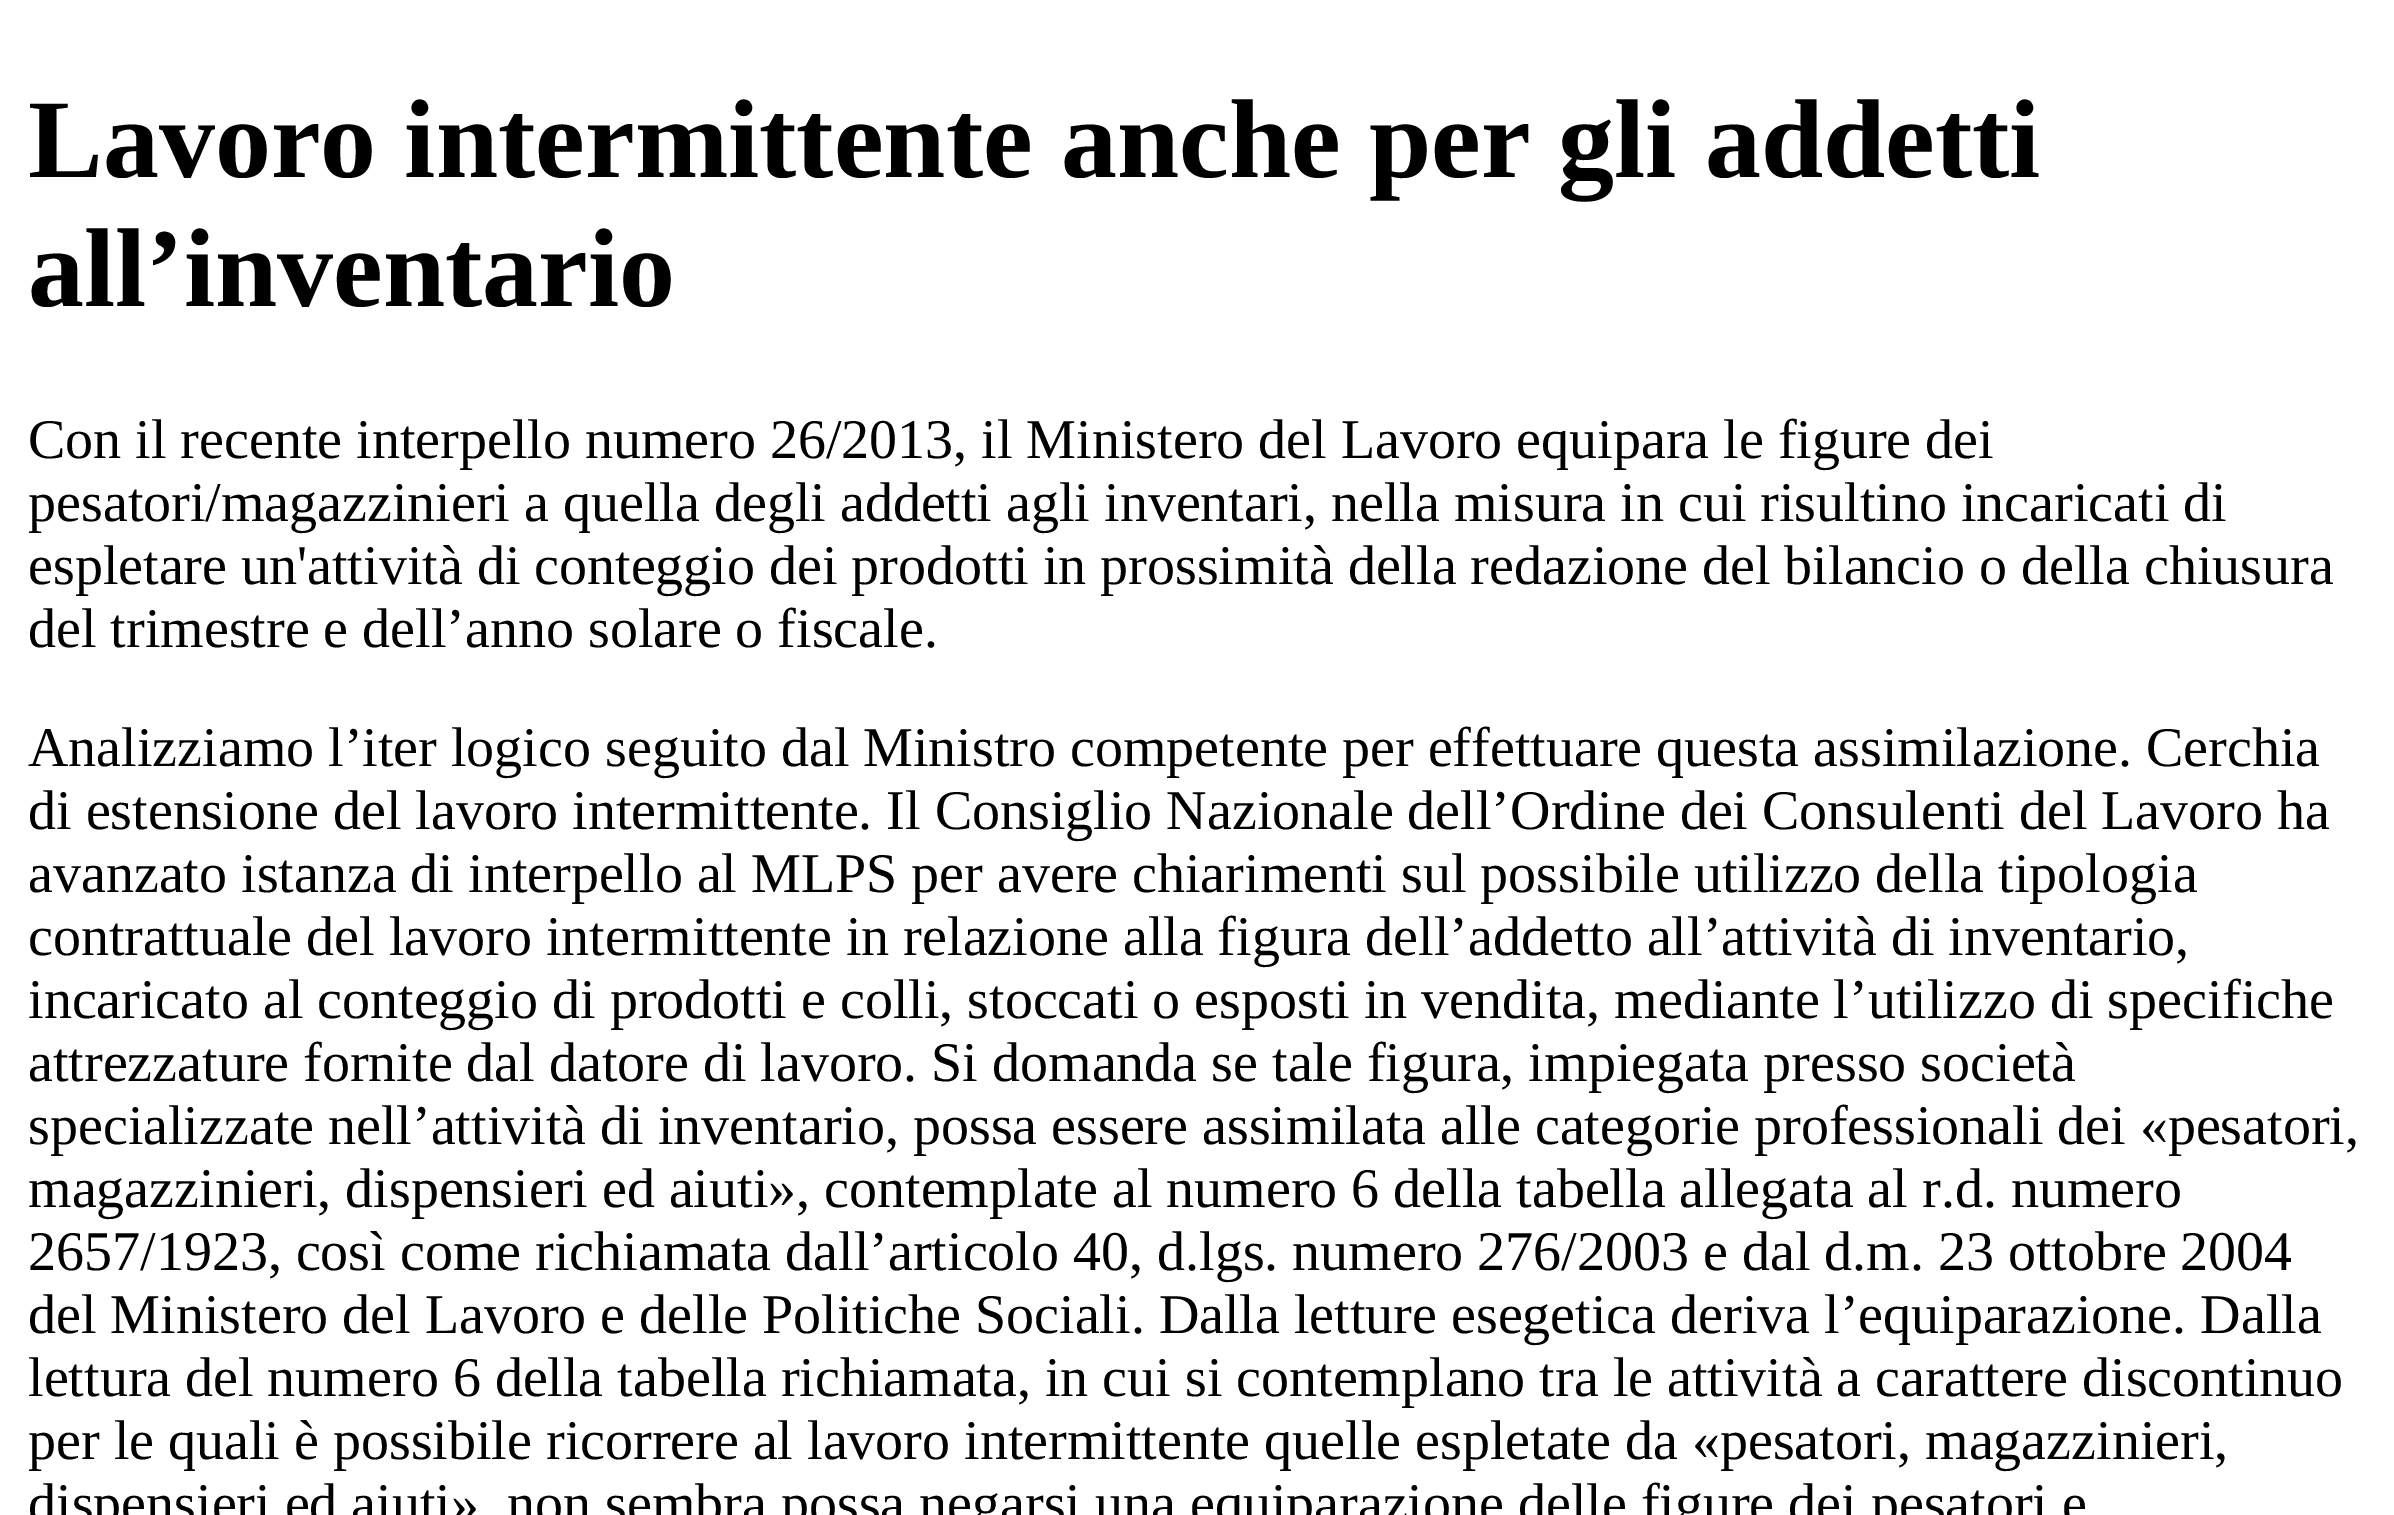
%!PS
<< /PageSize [2394 1515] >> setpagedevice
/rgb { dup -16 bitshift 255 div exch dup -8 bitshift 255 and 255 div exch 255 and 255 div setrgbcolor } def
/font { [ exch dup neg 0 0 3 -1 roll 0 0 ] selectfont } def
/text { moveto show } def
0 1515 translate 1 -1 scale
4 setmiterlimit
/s1 { /LiberationSerif-Bold 112 font 16#000000 rgb } def
/s2 { /LiberationSerif-Regular 56 font 16#000000 rgb } def
16#FFFFFF rgb
0 0 2394 1515 rectfill
s1
(Lavoro intermittente anche per gli addetti) 28 177 text
(all’inventario) 28 306 text
s2
(Con il recente interpello numero 26/2013, il Ministero del Lavoro equipara le figure dei) 28 458 text
(pesatori/magazzinieri a quella degli addetti agli inventari, nella misura in cui risultino incaricati di) 28 521 text
(espletare un'attività di conteggio dei prodotti in prossimità della redazione del bilancio o della chiusura) 28 584 text
(del trimestre e dell’anno solare o fiscale.) 28 647 text
(Analizziamo l’iter logico seguito dal Ministro competente per effettuare questa assimilazione. Cerchia) 28 766 text
(di estensione del lavoro intermittente. Il Consiglio Nazionale dell’Ordine dei Consulenti del Lavoro ha) 28 829 text
(avanzato istanza di interpello al MLPS per avere chiarimenti sul possibile utilizzo della tipologia) 28 892 text
(contrattuale del lavoro intermittente in relazione alla figura dell’addetto all’attività di inventario,) 28 955 text
(incaricato al conteggio di prodotti e colli, stoccati o esposti in vendita, mediante l’utilizzo di specifiche) 28 1018 text
(attrezzature fornite dal datore di lavoro. Si domanda se tale figura, impiegata presso società) 28 1081 text
(specializzate nell’attività di inventario, possa essere assimilata alle categorie professionali dei «pesatori,) 28 1144 text
(magazzinieri, dispensieri ed aiuti», contemplate al numero 6 della tabella allegata al r.d. numero) 28 1207 text
(2657/1923, così come richiamata dall’articolo 40, d.lgs. numero 276/2003 e dal d.m. 23 ottobre 2004) 28 1270 text
(del Ministero del Lavoro e delle Politiche Sociali. Dalla letture esegetica deriva l’equiparazione. Dalla) 28 1333 text
(lettura del numero 6 della tabella richiamata, in cui si contemplano tra le attività a carattere discontinuo) 28 1396 text
(per le quali è possibile ricorrere al lavoro intermittente quelle espletate da «pesatori, magazzinieri,) 28 1459 text
(dispensieri ed aiuti», non sembra possa negarsi una equiparazione delle figure dei pesatori e) 28 1522 text
showpage
